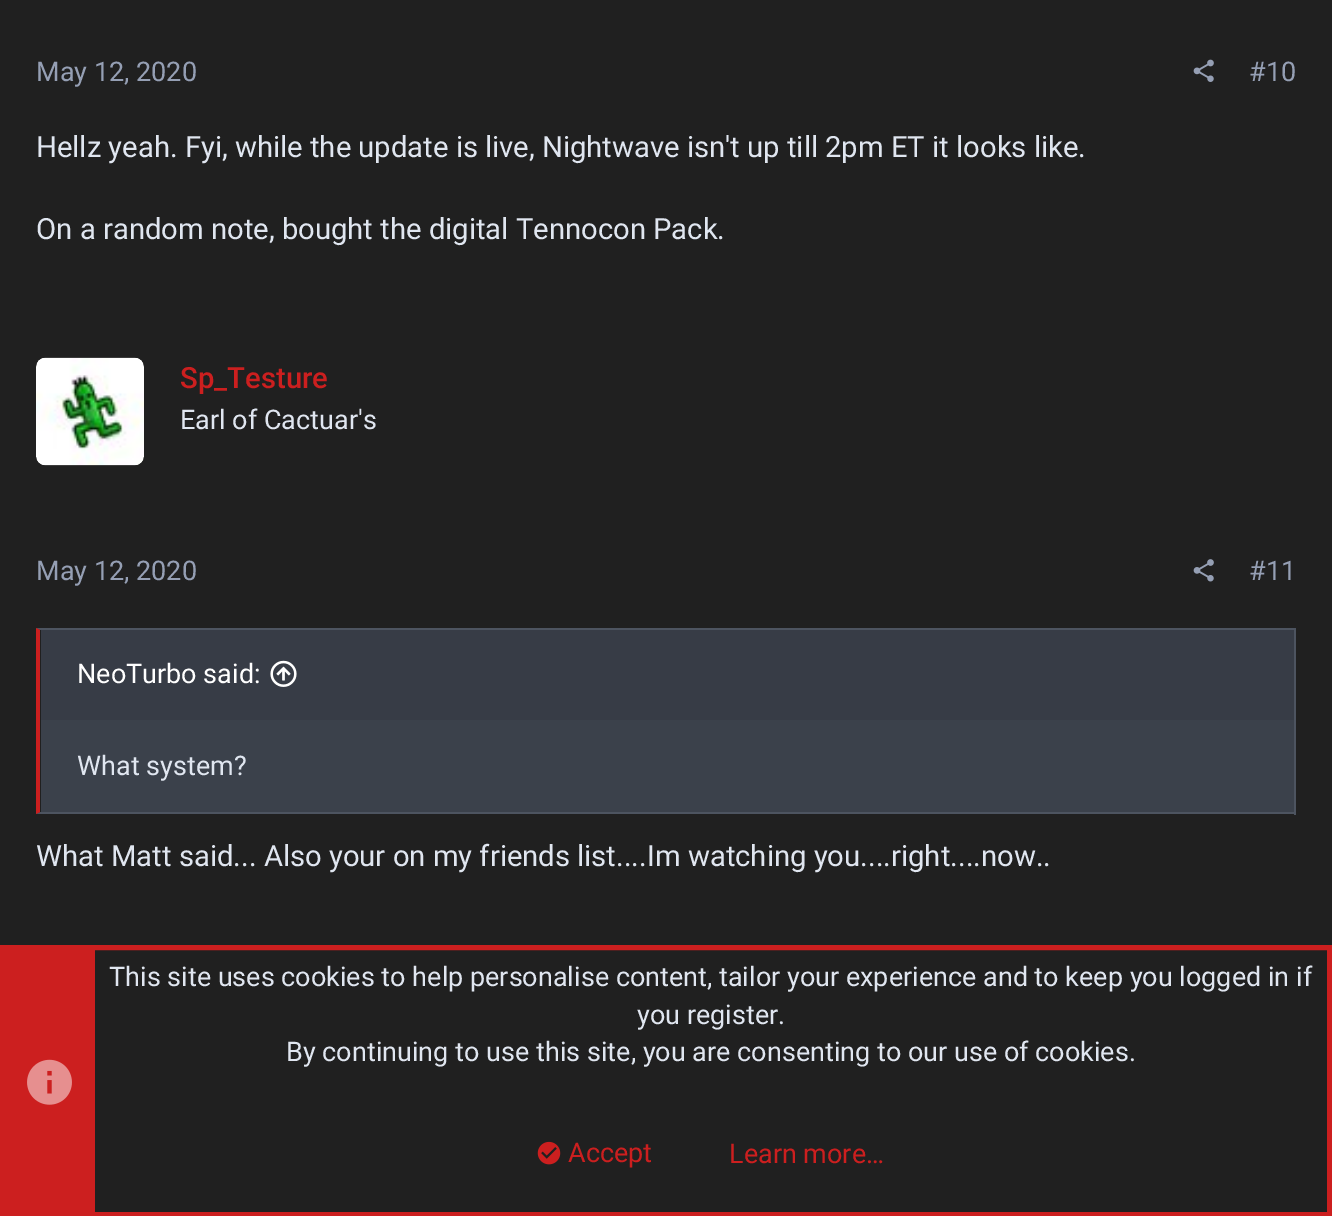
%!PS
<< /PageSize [1332 1216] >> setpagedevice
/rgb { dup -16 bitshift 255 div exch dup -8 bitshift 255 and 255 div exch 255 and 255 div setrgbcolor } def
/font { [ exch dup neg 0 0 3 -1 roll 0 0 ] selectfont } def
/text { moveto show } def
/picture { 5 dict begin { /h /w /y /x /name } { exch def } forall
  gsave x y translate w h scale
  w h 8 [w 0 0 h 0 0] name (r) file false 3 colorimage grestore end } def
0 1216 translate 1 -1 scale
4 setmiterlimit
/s1 { /Roboto-Regular 27 font 16#959FB4 rgb } def
/s2 { /Roboto-Regular 29.25 font 16#E0E6F0 rgb } def
/s3 { /Roboto-Medium 29.25 font 16#CC1F1F rgb } def
/s4 { /Roboto-Regular 27 font 16#E0E6F0 rgb } def
/s5 { /Roboto-Regular 27 font 16#FFFFFF rgb } def
/s6 { /Roboto-Regular 27 font 16#CC1F1F rgb } def
16#202020 rgb
0 0 1332 1216 rectfill
s1
(May 12, 2020) 36 81 text
(pic1.raw) 1193 59 21 23 picture
(#10) 1249 81 text
s2
(Hellz yeah. Fyi, while the update is live, Nightwave isn't up till 2pm ET it looks like.) 36 157 text
(On a random note, bought the digital Tennocon Pack.) 36 239 text
(pic2.raw) 36 357 108 109 picture
s3
(Sp_Testure) 180 388 text
s4
(Earl of Cactuar's) 180 429 text
s1
(May 12, 2020) 36 580 text
(pic3.raw) 1193 559 21 23 picture
(#11) 1249 580 text
16#3B414B rgb
41 720 1253 92 rectfill
16#4D5460 rgb
36 628 moveto 1296 628 lineto 1294 630 lineto 40 630 lineto closepath fill
1294 628 2 187 rectfill
1296 814 moveto 36 814 lineto 40 812 lineto 1294 812 lineto closepath fill
16#CC1F1F rgb
36 814 moveto 36 628 lineto 40 630 lineto 40 812 lineto closepath fill
16#373C46 rgb
41 630 1253 90 rectfill
s5
(NeoTurbo said:) 77 683 text
(pic4.raw) 270 660 27 27 picture
s4
(What system?) 77 775 text
s2
(What Matt said... Also your on my friends list....Im watching you....right....now..) 36 866 text
16#CC1F1F rgb
5 setlinewidth
2.5 947.5 1327 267 rectstroke
5 950 90 262 rectfill
(pic5.raw) 27 1059 45 46 picture
s4
(This site uses cookies to help personalise content, tailor your experience and to keep you logged in if) 109 986 text
(you register.) 637 1024 text
(By continuing to use this site, you are consenting to our use of cookies.) 286 1061 text
(pic6.raw) 537 1141 24 24 picture
s6
(Accept) 568 1162 text
(Learn more…) 729 1163 text
showpage
